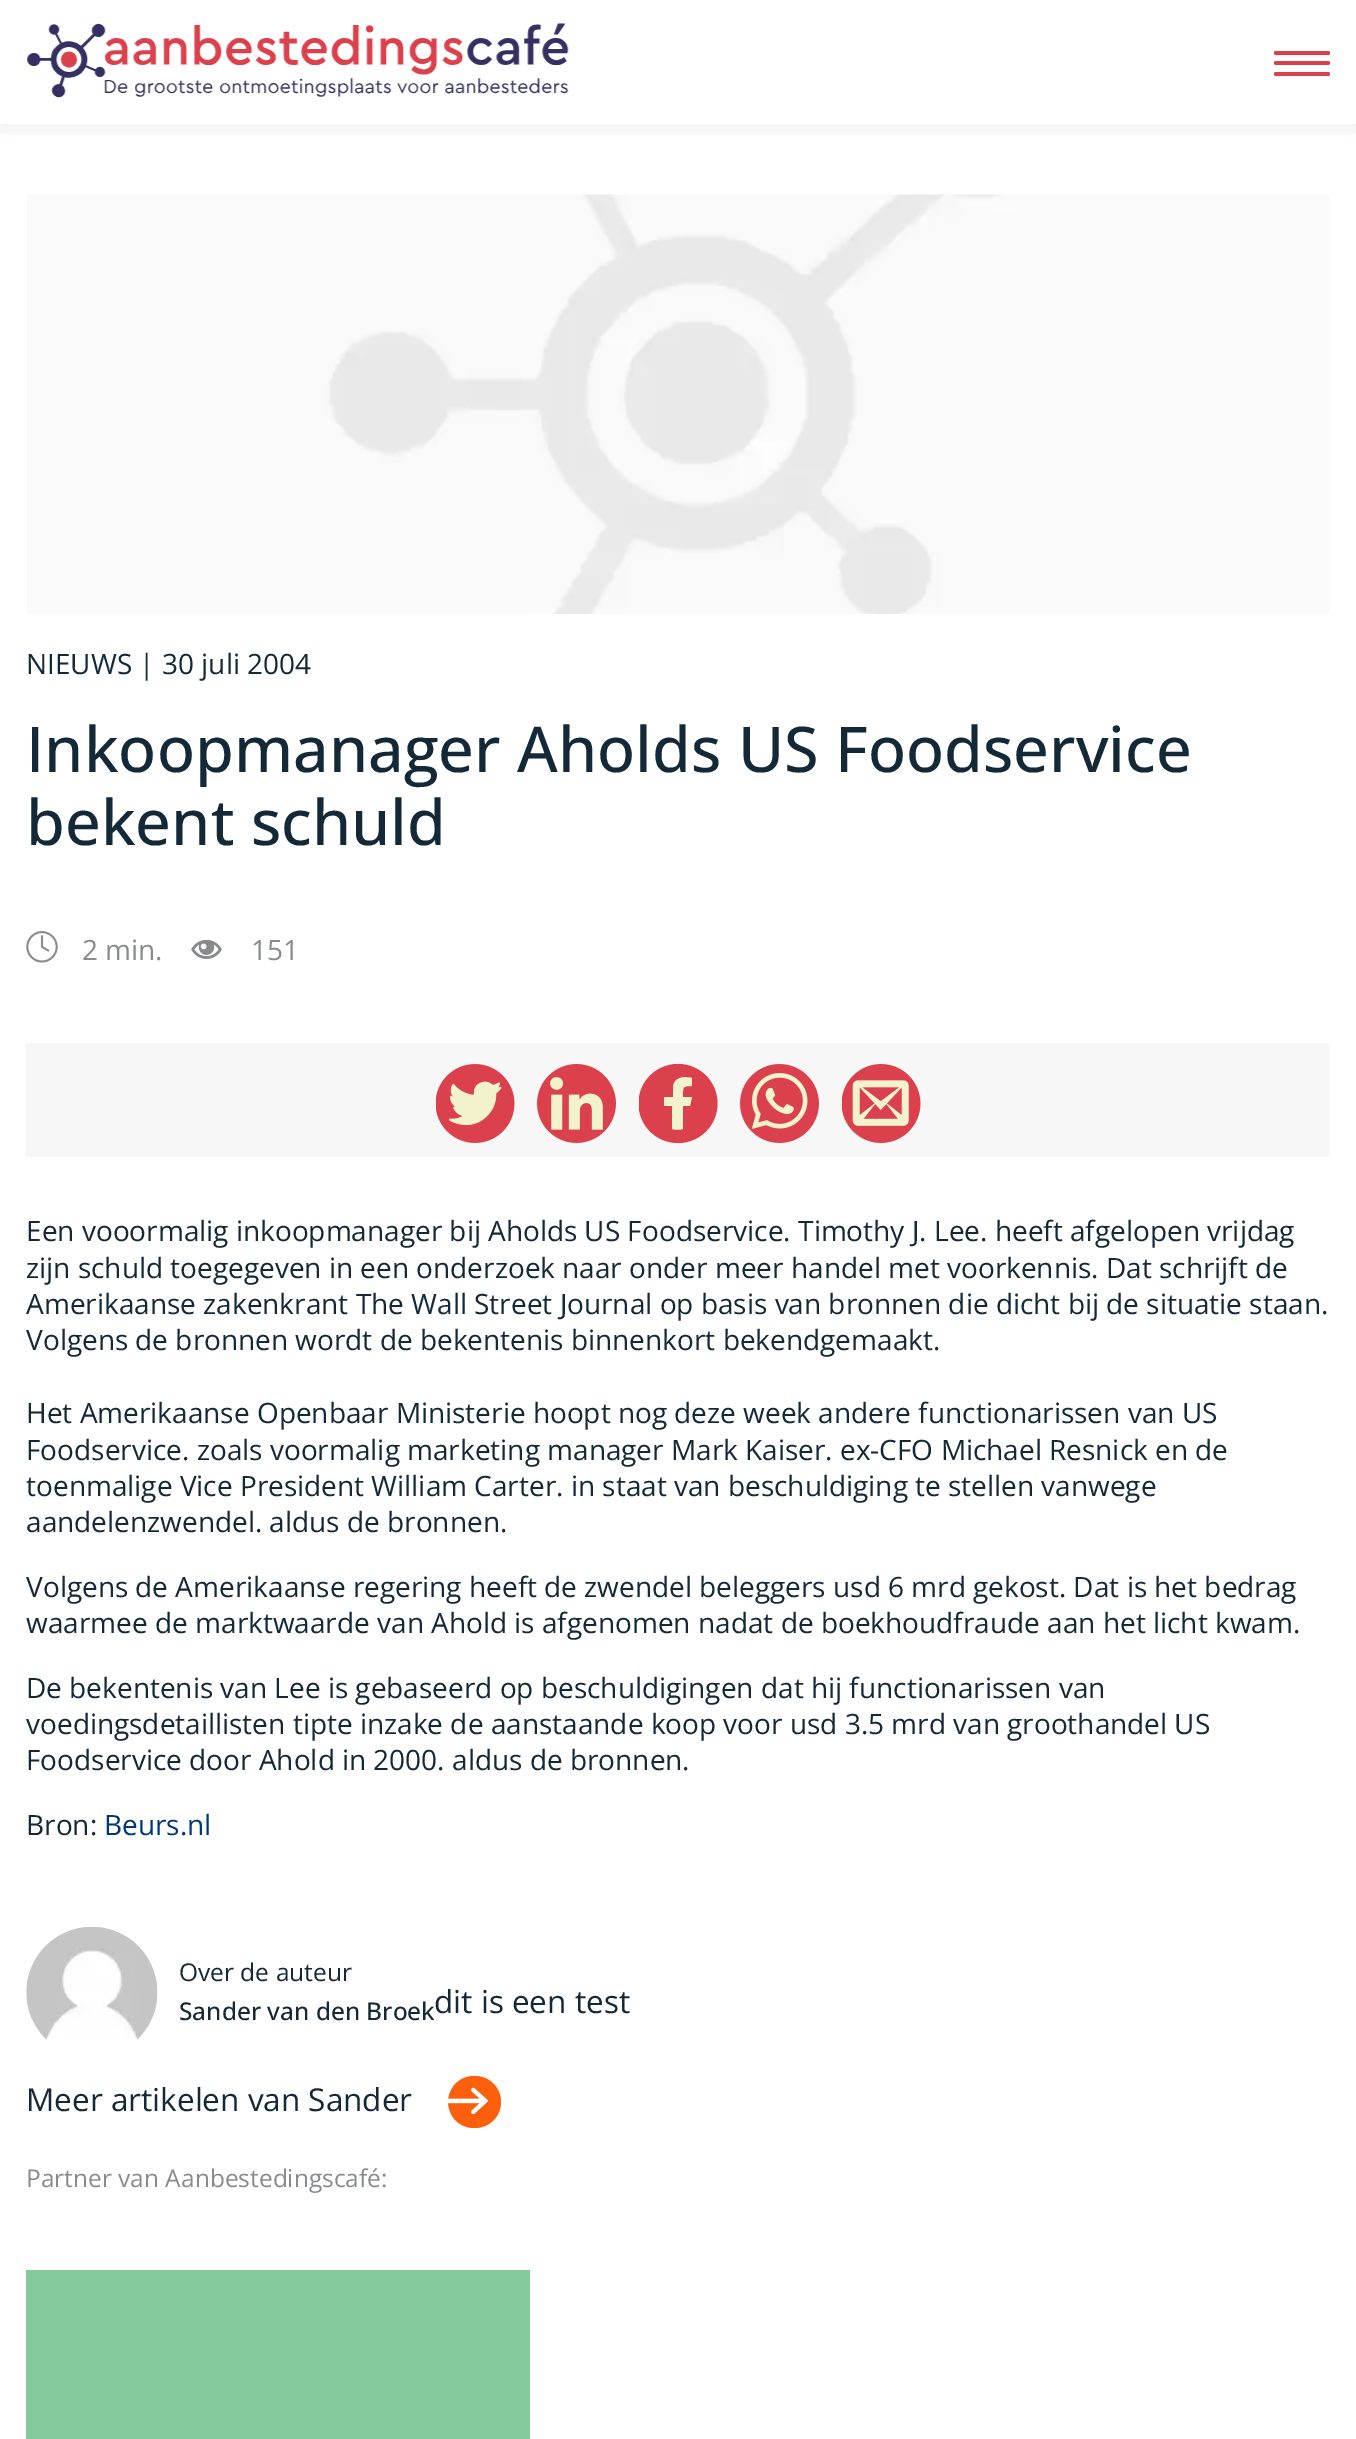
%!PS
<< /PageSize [1356 2439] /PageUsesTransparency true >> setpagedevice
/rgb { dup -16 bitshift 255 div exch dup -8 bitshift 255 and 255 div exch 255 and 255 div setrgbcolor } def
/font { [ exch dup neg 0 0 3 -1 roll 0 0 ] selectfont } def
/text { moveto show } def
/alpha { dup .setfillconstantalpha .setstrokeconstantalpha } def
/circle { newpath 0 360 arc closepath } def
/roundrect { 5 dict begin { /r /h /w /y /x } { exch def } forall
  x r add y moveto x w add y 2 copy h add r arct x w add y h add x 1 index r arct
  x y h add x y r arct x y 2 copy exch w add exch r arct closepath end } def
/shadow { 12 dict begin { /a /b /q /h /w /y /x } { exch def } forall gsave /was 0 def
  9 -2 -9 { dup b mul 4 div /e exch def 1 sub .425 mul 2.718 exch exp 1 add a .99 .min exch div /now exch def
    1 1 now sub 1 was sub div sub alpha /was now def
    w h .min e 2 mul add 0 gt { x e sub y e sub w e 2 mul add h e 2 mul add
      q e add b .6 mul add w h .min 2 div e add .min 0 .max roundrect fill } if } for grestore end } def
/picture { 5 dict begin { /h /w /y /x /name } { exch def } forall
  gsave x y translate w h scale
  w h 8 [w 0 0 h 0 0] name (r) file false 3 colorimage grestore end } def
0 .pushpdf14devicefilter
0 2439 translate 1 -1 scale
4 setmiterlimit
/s1 { /OpenSans-Regular 28 font 16#142938 rgb } def
/s2 { /OpenSans-Medium 63 font 16#142938 rgb } def
/s3 { /OpenSans-Regular 28 font 16#888A8D rgb } def
/s4 { /OpenSans-Regular 28 font 16#00377B rgb } def
/s5 { /OpenSans-Regular 24.5 font 16#142938 rgb } def
/s6 { /OpenSans-Medium 24.5 font 16#142938 rgb } def
/s7 { /OpenSans-Regular 31.5 font 16#142938 rgb } def
/s8 { /OpenSans-Regular 24.5 font 16#888A8D rgb } def
16#FFFFFF rgb
0 0 1356 2439 rectfill
gsave
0 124 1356 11 rectclip
16#142938 rgb
0 0 1356 124 0 13 0.1 shadow
grestore
(pic1.raw) 27 23 542 75 picture
16#DB414C rgb
1274 51 56 4 2 roundrect fill
1274 61 56 4 2 roundrect fill
1274 72 56 4 2 roundrect fill
(pic2.raw) 27 194 1303 420 picture
s1
(NIEUWS | 30 juli 2004) 26 674 text
s2
(Inkoopmanager Aholds US Foodservice) 26 772 text
(bekent schuld) 26 845 text
(pic3.raw) 26 931 32 32 picture
s3
(2 min.) 82 960 text
(pic4.raw) 191 940 31 19 picture
(151) 251 960 text
16#F7F7F7 rgb
26 1043 1304 114 rectfill
(pic5.raw) 436 1064 79 79 picture
(pic6.raw) 537 1064 79 79 picture
gsave
639 1064 79 79 rectclip
16#DB414C rgb
678 1103.5 39.5 circle fill
grestore
16#F2F2CC rgb
690 1106 moveto 692 1097 lineto 683 1097 lineto 683 1087 682 1086 692 1086 curveto 692 1078 lineto 684 1076 674 1077 673 1087 curveto 673 1097 lineto 664 1097 lineto 664 1106 lineto 672 1106 lineto 672 1129 lineto 676 1130 679 1130 683 1129 curveto 683 1106 lineto closepath fill
(pic7.raw) 740 1064 79 79 picture
(pic8.raw) 842 1064 79 79 picture
s1
(Een vooormalig inkoopmanager bij Aholds US Foodservice. Timothy J. Lee. heeft afgelopen vrijdag) 26 1241 text
(zijn schuld toegegeven in een onderzoek naar onder meer handel met voorkennis. Dat schrijft de) 26 1278 text
(Amerikaanse zakenkrant The Wall Street Journal op basis van bronnen die dicht bij de situatie staan.) 26 1314 text
(Volgens de bronnen wordt de bekentenis binnenkort bekendgemaakt.) 26 1350 text
(Het Amerikaanse Openbaar Ministerie hoopt nog deze week andere functionarissen van US) 26 1423 text
(Foodservice. zoals voormalig marketing manager Mark Kaiser. ex-CFO Michael Resnick en de) 26 1460 text
(toenmalige Vice President William Carter. in staat van beschuldiging te stellen vanwege) 26 1496 text
(aandelenzwendel. aldus de bronnen.) 26 1532 text
(Volgens de Amerikaanse regering heeft de zwendel beleggers usd 6 mrd gekost. Dat is het bedrag) 26 1597 text
(waarmee de marktwaarde van Ahold is afgenomen nadat de boekhoudfraude aan het licht kwam.) 26 1633 text
(De bekentenis van Lee is gebaseerd op beschuldigingen dat hij functionarissen van) 26 1698 text
(voedingsdetaillisten tipte inzake de aanstaande koop voor usd 3.5 mrd van groothandel US) 26 1734 text
(Foodservice door Ahold in 2000. aldus de bronnen.) 26 1770 text
(Bron:) 26 1835 text
s4
(Beurs.nl) 104 1835 text
(pic9.raw) 26 1927 132 113 picture
s5
(Over de auteur) 179 1981 text
s6
(Sander van den Broek) 179 2020 text
s7
(dit is een test) 434 2013 text
(Meer artikelen van Sander) 26 2111 text
16#FD5F0D rgb
448 2076 53 52 26 roundrect fill
(pic10.raw) 448 2087 40 28 picture
s8
(Partner van Aanbestedingscafé:) 26 2187 text
16#82CA9C rgb
26 2270 504 169 rectfill
.poppdf14devicefilter showpage
